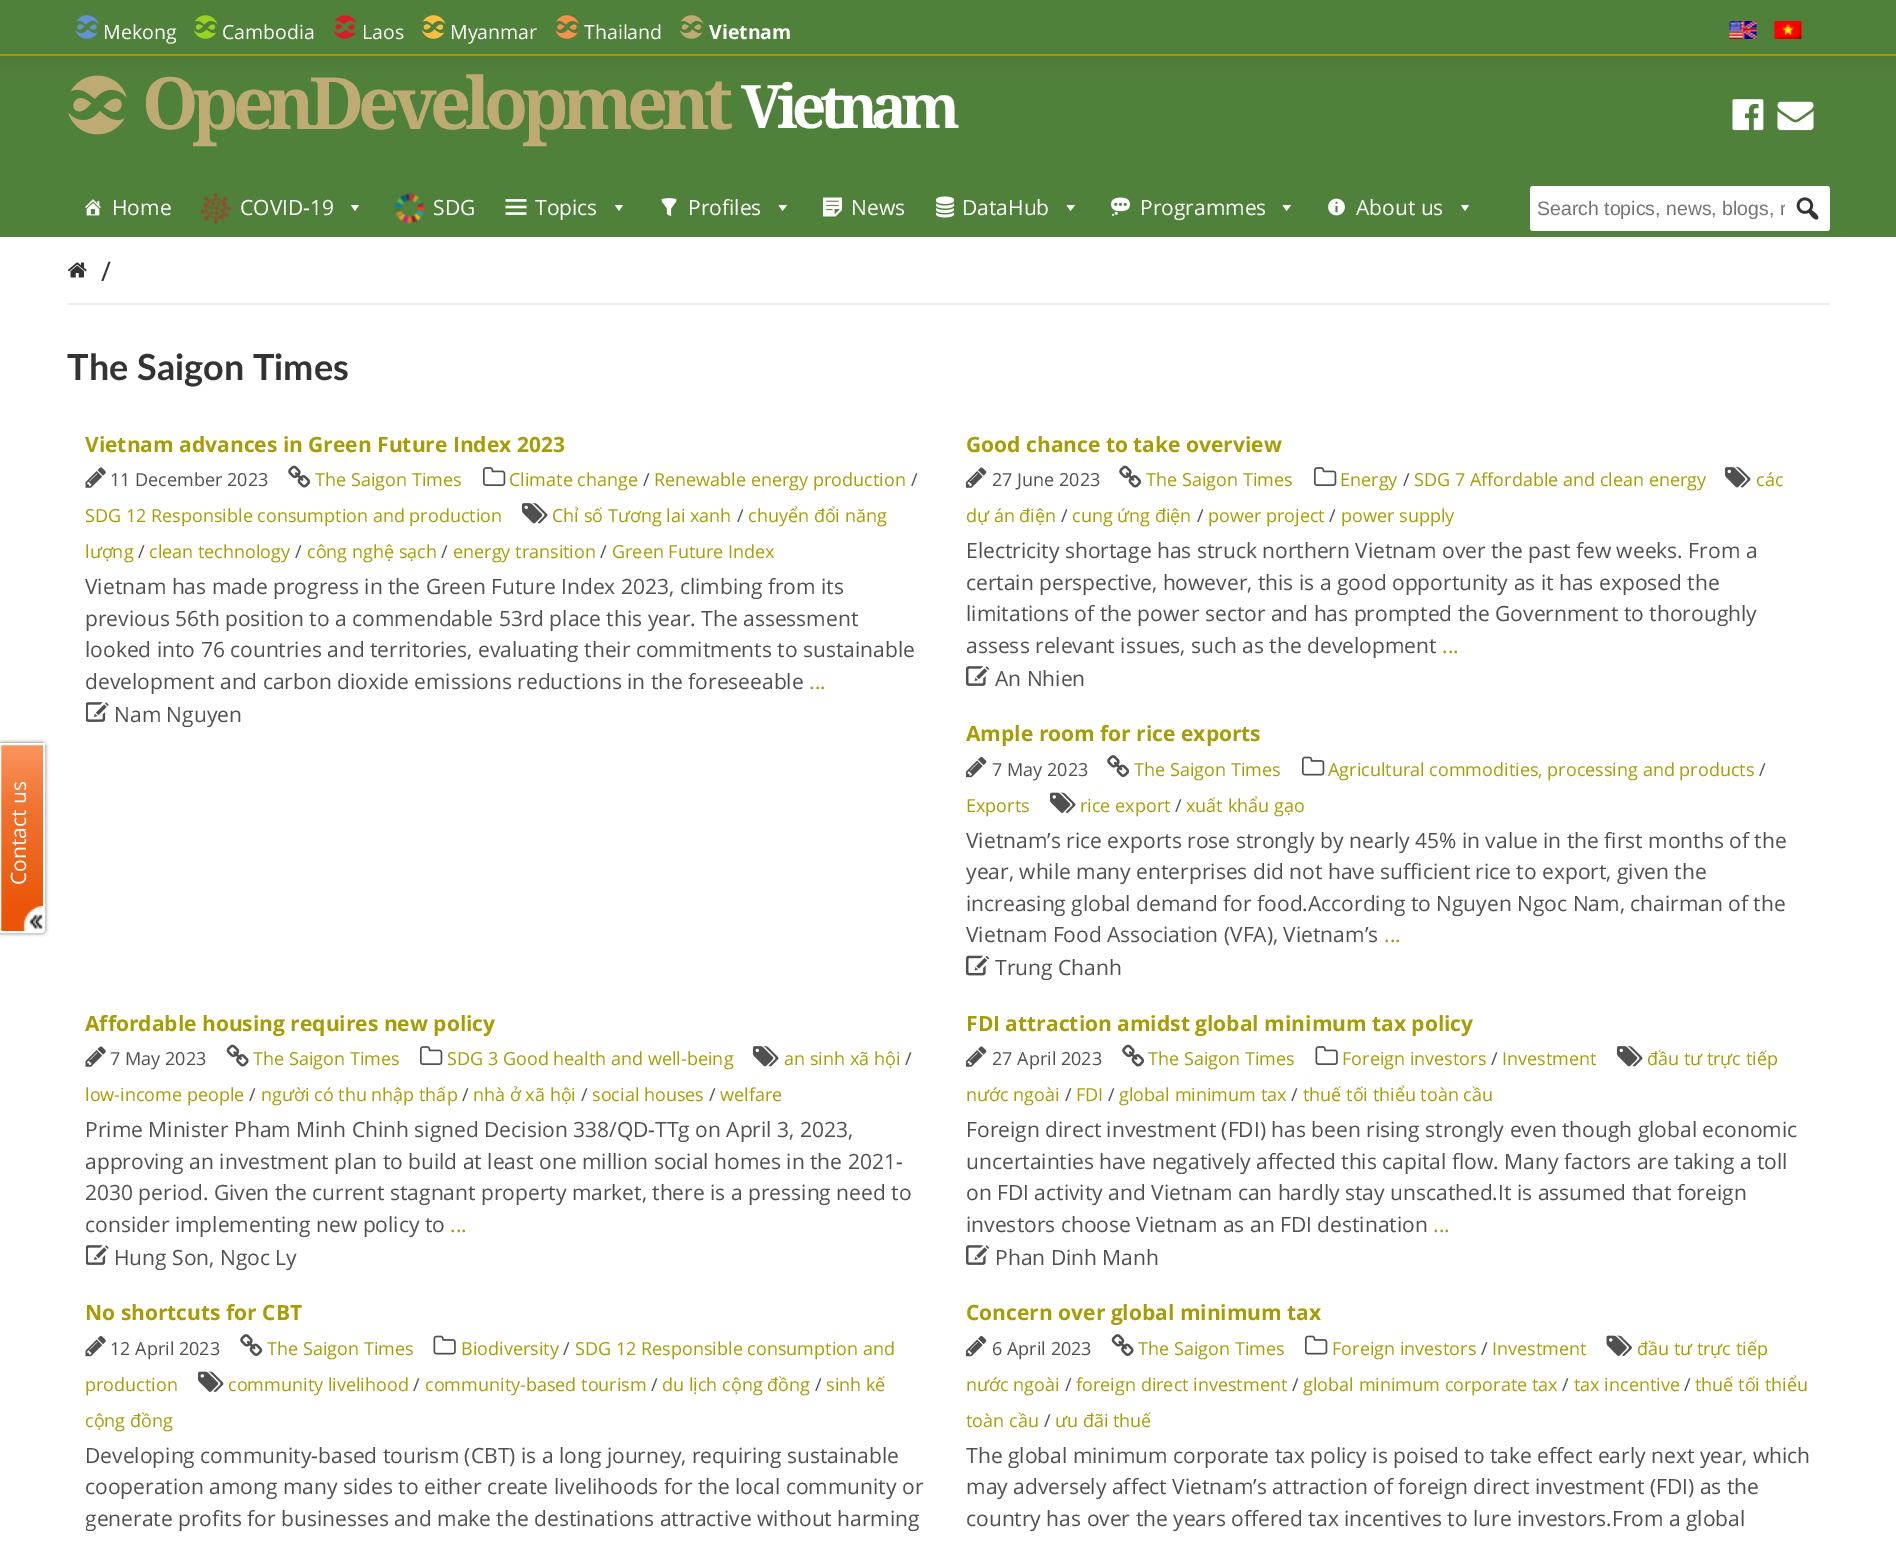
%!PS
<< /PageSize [1896 1547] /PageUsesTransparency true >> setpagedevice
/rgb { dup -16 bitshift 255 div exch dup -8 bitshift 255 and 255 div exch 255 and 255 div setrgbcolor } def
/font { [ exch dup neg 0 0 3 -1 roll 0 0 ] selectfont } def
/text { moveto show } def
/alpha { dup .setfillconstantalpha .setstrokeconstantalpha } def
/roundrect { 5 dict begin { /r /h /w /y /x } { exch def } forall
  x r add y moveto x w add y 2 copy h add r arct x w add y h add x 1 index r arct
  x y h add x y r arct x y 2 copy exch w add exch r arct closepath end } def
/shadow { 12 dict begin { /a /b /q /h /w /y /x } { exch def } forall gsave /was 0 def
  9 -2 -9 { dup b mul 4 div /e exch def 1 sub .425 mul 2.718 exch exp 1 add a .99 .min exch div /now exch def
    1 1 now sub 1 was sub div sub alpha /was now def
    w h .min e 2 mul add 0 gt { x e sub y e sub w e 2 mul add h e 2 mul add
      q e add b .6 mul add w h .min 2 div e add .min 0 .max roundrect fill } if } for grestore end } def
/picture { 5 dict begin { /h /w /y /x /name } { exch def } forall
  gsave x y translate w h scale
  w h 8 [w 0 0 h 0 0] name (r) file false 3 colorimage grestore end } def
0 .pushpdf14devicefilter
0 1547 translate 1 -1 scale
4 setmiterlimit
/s1 { /OpenSans-Regular 19.5 font 16#FFFFFF rgb } def
/s2 { /OpenSans-Bold 19.5 font 16#FFFFFF rgb } def
/s3 { /OpenSans-Regular 21 font 16#FFFFFF rgb } def
/s4 { /LiberationSans-Regular 19.5 font 16#757575 rgb } def
/s5 { /OpenSans-Regular 27 font 16#333333 rgb } def
/s6 { /Lato-Bold 36 font 16#333333 rgb } def
/s7 { /OpenSans-Bold 21 font 16#A89B04 rgb } def
/s8 { /OpenSans-Regular 18 font 16#A89B04 rgb } def
/s9 { /OpenSans-Regular 18 font 16#505050 rgb } def
/s10 { /OpenSans-Regular 21 font 16#505050 rgb } def
/s11 { /OpenSans-Regular 21 font 16#A89B04 rgb } def
16#FFFFFF rgb
0 0 1896 1547 rectfill
16#50813B rgb
0 56 1896 181 rectfill
(pic9.raw) 68 75 59 60 picture
16#000000 rgb
0 2 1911 55 0 7.5 0.1 shadow
16#50813B rgb
0 0 1896 54 rectfill
16#A89B04 rgb
0 54 1896 2 rectfill
(pic1.raw) 75 15 24 24 picture
s1
(Mekong) 103 39 text
(pic2.raw) 194 15 24 24 picture
(Cambodia) 222 39 text
(pic3.raw) 333 15 24 24 picture
(Laos) 362 39 text
(pic4.raw) 422 15 24 24 picture
(Myanmar) 450 39 text
(pic5.raw) 555 15 24 24 picture
(Thailand) 584 39 text
(pic6.raw) 680 15 24 24 picture
s2
(Vietnam) 709 39 text
(pic7.raw) 1729 21 28 18 picture
(pic8.raw) 1774 21 28 18 picture
/DroidSerif-Bold 72 font
16#BEAB74 rgb
142 129 moveto -6.25 0 (OpenDevelopment) ashow
/DroidSerif-Bold 60 font
16#FFFFFF rgb
741 128 moveto -6.25 0 (Vietnam) ashow
(pic10.raw) 1732 99 32 32 picture
(pic11.raw) 1777 101 37 30 picture
(pic12.raw) 85 199 16 17 picture
s3
(Home) 112 215 text
(pic13.raw) 201 193 30 31 picture
(COVID-19) 240 215 text
359 205 moveto 355 211 lineto 351 205 lineto closepath fill
(pic14.raw) 394 193 31 31 picture
(SDG) 433 215 text
(pic15.raw) 505 199 22 16 picture
(Topics) 535 215 text
623 205 moveto 619 211 lineto 615 205 lineto closepath fill
(pic16.raw) 661 198 16 18 picture
(Profiles) 688 215 text
787 205 moveto 782.5 211 lineto 778.5 205 lineto closepath fill
(pic17.raw) 823 197 19 20 picture
(News) 851 215 text
(pic18.raw) 936 196 18 22 picture
(DataHub) 962 215 text
1075 205 moveto 1070.5 211 lineto 1066.5 205 lineto closepath fill
(pic19.raw) 1111 197 19 19 picture
(Programmes) 1140 215 text
1291 205 moveto 1286.5 211 lineto 1282.5 205 lineto closepath fill
(pic20.raw) 1328 198 17 18 picture
(About us) 1356 215 text
1469 205 moveto 1465 211 lineto 1461 205 lineto closepath fill
1530 186 300 45 3 roundrect fill
gsave
1538 197 247 22 rectclip
s4
(Search topics, news, blogs, r) 1537 215 text
grestore
(pic21.raw) 1796 197 23 23 picture
16#EEEEEE rgb
68 303 1762 2 rectfill
(pic22.raw) 68 262 19 16 picture
s5
(/) 101 281 text
16#555555 rgb
-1 743 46 190 3 2 1 shadow
gsave 1 745 moveto 45 745 lineto 45 932 lineto 1 932 lineto closepath clip newpath
<< /ShadingType 2 /ColorSpace /DeviceRGB /Coords [22 744 22 932] /Extend [true true] /Function << /FunctionType 3 /Domain [0 1] /Functions [<< /FunctionType 2 /Domain [0 1] /C0 [0.984 0.584 0.369] /C1 [0.945 0.455 0.196] /N 1 >> << /FunctionType 2 /Domain [0 1] /C0 [0.945 0.455 0.196] /C1 [0.918 0.333 0.027] /N 1 >> << /FunctionType 2 /Domain [0 1] /C0 [0.918 0.333 0.027] /C1 [0.918 0.333 0.027] /N 1 >>] /Bounds [0.32 0.9] /Encode [0 1 0 1 0 1] >> >> shfill grestore
16#FFFFFF rgb
2 setlinewidth
0 744 moveto 44 744 lineto 44 930 lineto 44 931 43 932 42 932 curveto 2 932 lineto 1 932 0 931 0 930 curveto closepath stroke
/OpenSans-Regular 21 font
gsave 26 885 translate -90 rotate 0 0 moveto (Contact us) show grestore
(pic23.raw) 23 906 20 25 picture
s6
(The Saigon Times) 67 380 text
s7
(Vietnam advances in Green Future Index 2023) 85 452 text
(pic24.raw) 483 467 23 19 picture
s8
(Climate change) 509 486 text
s9
(/) 643 486 text
s8
(Renewable energy production) 654 486 text
s9
(/) 911 486 text
s8
(SDG 12 Responsible consumption and production) 85 522 text
(pic25.raw) 85 467 21 21 picture
s9
(11 December 2023) 110 486 text
(pic26.raw) 288 465 23 23 picture
s8
(The Saigon Times) 315 486 text
(pic27.raw) 522 503 26 21 picture
(Chỉ số Tương lai xanh) 552 522 text
s9
(/) 737 522 text
s8
(chuyển đổi năng) 748 522 text
(lượng) 85 558 text
s9
(/) 138 558 text
s8
(clean technology) 149 558 text
s9
(/) 295 558 text
s8
(công nghệ sạch) 307 558 text
s9
(/) 441 558 text
s8
(energy transition) 453 558 text
s9
(/) 600 558 text
s8
(Green Future Index) 612 558 text
s10
(Vietnam has made progress in the Green Future Index 2023, climbing from its) 85 594 text
(previous 56th position to a commendable 53rd place this year. The assessment) 85 626 text
(looked into 76 countries and territories, evaluating their commitments to sustainable) 85 657 text
(development and carbon dioxide emissions reductions in the foreseeable) 85 689 text
s11
(...) 809 689 text
(pic28.raw) 86 702 23 20 picture
s10
(Nam Nguyen) 114 722 text
s7
(Good chance to take overview) 966 452 text
(pic27.raw) 1725 467 26 21 picture
s8
(các) 1756 486 text
(dự án điện) 966 522 text
s9
(/) 1061 522 text
s8
(cung ứng điện) 1072 522 text
s9
(/) 1197 522 text
s8
(power project) 1208 522 text
s9
(/) 1329 522 text
s8
(power supply) 1341 522 text
(pic29.raw) 966 467 21 21 picture
s9
(27 June 2023) 992 486 text
(pic26.raw) 1119 465 23 23 picture
s8
(The Saigon Times) 1146 486 text
(pic24.raw) 1314 467 23 19 picture
(Energy) 1340 486 text
s9
(/) 1403 486 text
s8
(SDG 7 Affordable and clean energy) 1414 486 text
s10
(Electricity shortage has struck northern Vietnam over the past few weeks. From a) 966 558 text
(certain perspective, however, this is a good opportunity as it has exposed the) 966 590 text
(limitations of the power sector and has prompted the Government to thoroughly) 966 621 text
(assess relevant issues, such as the development) 966 653 text
s11
(...) 1442 653 text
(pic30.raw) 966 666 24 20 picture
s10
(An Nhien) 995 686 text
s7
(Ample room for rice exports) 966 741 text
(pic31.raw) 1302 756 23 20 picture
s8
(Agricultural commodities, processing and products) 1328 776 text
s9
(/) 1759 776 text
s8
(Exports) 966 812 text
(pic32.raw) 966 756 21 22 picture
s9
(7 May 2023) 992 776 text
(pic33.raw) 1107 755 23 22 picture
s8
(The Saigon Times) 1134 776 text
(pic34.raw) 1050 792 26 21 picture
(rice export) 1080 812 text
s9
(/) 1175 812 text
s8
(xuất khẩu gạo) 1186 812 text
s10
(Vietnam’s rice exports rose strongly by nearly 45% in value in the first months of the) 966 848 text
(year, while many enterprises did not have sufficient rice to export, given the) 966 879 text
(increasing global demand for food.According to Nguyen Ngoc Nam, chairman of the) 966 911 text
(Vietnam Food Association \(VFA\), Vietnam’s) 966 942 text
s11
(...) 1384 942 text
(pic35.raw) 966 955 24 21 picture
s10
(Trung Chanh) 995 975 text
s7
(Affordable housing requires new policy) 85 1031 text
(pic27.raw) 753 1046 26 21 picture
s8
(an sinh xã hội) 784 1065 text
s9
(/) 905 1065 text
s8
(low-income people) 85 1101 text
s9
(/) 249 1101 text
s8
(người có thu nhập thấp) 261 1101 text
s9
(/) 462 1101 text
s8
(nhà ở xã hội) 473 1101 text
s9
(/) 581 1101 text
s8
(social houses) 592 1101 text
s9
(/) 709 1101 text
s8
(welfare) 720 1101 text
(pic25.raw) 85 1046 21 21 picture
s9
(7 May 2023) 110 1065 text
(pic36.raw) 226 1044 23 23 picture
s8
(The Saigon Times) 253 1065 text
(pic24.raw) 420 1046 23 19 picture
(SDG 3 Good health and well-being) 447 1065 text
s10
(Prime Minister Pham Minh Chinh signed Decision 338/QD-TTg on April 3, 2023,) 85 1137 text
(approving an investment plan to build at least one million social homes in the 2021-) 85 1169 text
(2030 period. Given the current stagnant property market, there is a pressing need to) 85 1200 text
(consider implementing new policy to) 85 1232 text
s11
(...) 450 1232 text
(pic28.raw) 86 1245 23 20 picture
s10
(Hung Son, Ngoc Ly) 114 1265 text
s7
(FDI attraction amidst global minimum tax policy) 966 1031 text
(pic27.raw) 1617 1046 26 21 picture
s8
(đầu tư trực tiếp) 1647 1065 text
(nước ngoài) 966 1101 text
s9
(/) 1065 1101 text
s8
(FDI) 1076 1101 text
s9
(/) 1108 1101 text
s8
(global minimum tax) 1119 1101 text
s9
(/) 1291 1101 text
s8
(thuế tối thiểu toàn cầu) 1303 1101 text
(pic29.raw) 966 1046 21 21 picture
s9
(27 April 2023) 992 1065 text
(pic26.raw) 1122 1044 23 23 picture
s8
(The Saigon Times) 1148 1065 text
(pic37.raw) 1315 1046 23 19 picture
(Foreign investors) 1342 1065 text
s9
(/) 1491 1065 text
s8
(Investment) 1502 1065 text
s10
(Foreign direct investment \(FDI\) has been rising strongly even though global economic) 966 1137 text
(uncertainties have negatively affected this capital flow. Many factors are taking a toll) 966 1169 text
(on FDI activity and Vietnam can hardly stay unscathed.It is assumed that foreign) 966 1200 text
(investors choose Vietnam as an FDI destination) 966 1232 text
s11
(...) 1433 1232 text
(pic30.raw) 966 1245 24 20 picture
s10
(Phan Dinh Manh) 995 1265 text
s7
(No shortcuts for CBT) 85 1320 text
(pic38.raw) 433 1335 23 20 picture
s8
(Biodiversity) 461 1355 text
s9
(/) 563 1355 text
s8
(SDG 12 Responsible consumption and) 575 1355 text
(production) 85 1391 text
(pic39.raw) 85 1336 21 21 picture
s9
(12 April 2023) 110 1355 text
(pic33.raw) 240 1334 23 22 picture
s8
(The Saigon Times) 267 1355 text
(pic34.raw) 198 1371 26 21 picture
(community livelihood) 228 1391 text
s9
(/) 413 1391 text
s8
(community-based tourism) 425 1391 text
s9
(/) 651 1391 text
s8
(du lịch cộng đồng) 662 1391 text
s9
(/) 815 1391 text
s8
(sinh kế) 826 1391 text
(cộng đồng) 85 1427 text
s10
(Developing community-based tourism \(CBT\) is a long journey, requiring sustainable) 85 1463 text
(cooperation among many sides to either create livelihoods for the local community or) 85 1494 text
gsave
86 1439 844 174 rectclip
(generate profits for businesses and make the destinations attractive without harming) 85 1526 text
grestore
s7
(Concern over global minimum tax) 966 1320 text
(pic40.raw) 1606 1335 26 21 picture
s8
(đầu tư trực tiếp) 1637 1355 text
(nước ngoài) 966 1391 text
s9
(/) 1065 1391 text
s8
(foreign direct investment) 1076 1391 text
s9
(/) 1292 1391 text
s8
(global minimum corporate tax) 1303 1391 text
s9
(/) 1562 1391 text
s8
(tax incentive) 1574 1391 text
s9
(/) 1684 1391 text
s8
(thuế tối thiểu) 1695 1391 text
(toàn cầu) 966 1427 text
s9
(/) 1044 1427 text
s8
(ưu đãi thuế) 1055 1427 text
(pic32.raw) 966 1335 21 22 picture
s9
(6 April 2023) 992 1355 text
(pic41.raw) 1111 1334 23 22 picture
s8
(The Saigon Times) 1138 1355 text
(pic31.raw) 1305 1335 23 20 picture
(Foreign investors) 1332 1355 text
s9
(/) 1481 1355 text
s8
(Investment) 1492 1355 text
s10
(The global minimum corporate tax policy is poised to take effect early next year, which) 966 1463 text
(may adversely affect Vietnam’s attraction of foreign direct investment \(FDI\) as the) 966 1494 text
(country has over the years offered tax incentives to lure investors.From a global) 966 1526 text
.poppdf14devicefilter showpage
